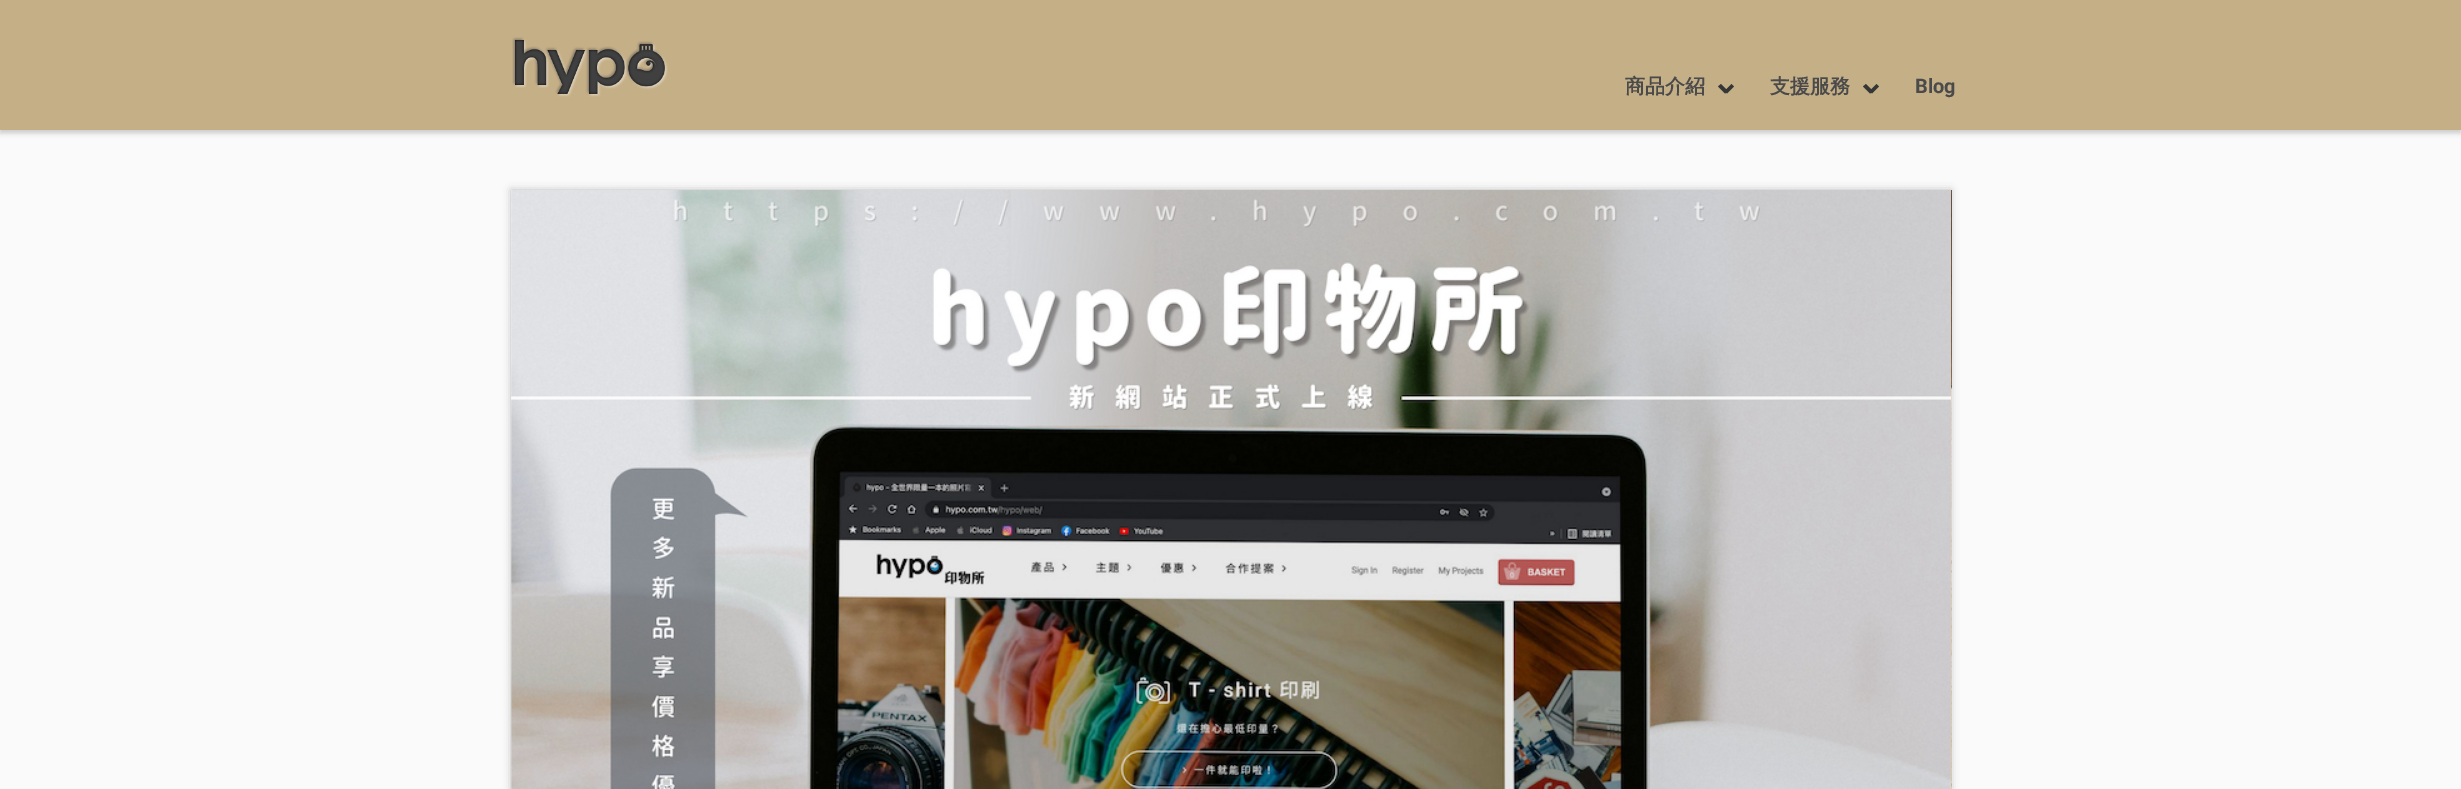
%!PS
<< /PageSize [2461 789] /PageUsesTransparency true >> setpagedevice
/rgb { dup -16 bitshift 255 div exch dup -8 bitshift 255 and 255 div exch 255 and 255 div setrgbcolor } def
/font { [ exch dup neg 0 0 3 -1 roll 0 0 ] selectfont } def
/text { moveto show } def
/alpha { dup .setfillconstantalpha .setstrokeconstantalpha } def
/roundrect { 5 dict begin { /r /h /w /y /x } { exch def } forall
  x r add y moveto x w add y 2 copy h add r arct x w add y h add x 1 index r arct
  x y h add x y r arct x y 2 copy exch w add exch r arct closepath end } def
/shadow { 12 dict begin { /a /b /q /h /w /y /x } { exch def } forall gsave /was 0 def
  9 -2 -9 { dup b mul 4 div /e exch def 1 sub .425 mul 2.718 exch exp 1 add a .99 .min exch div /now exch def
    1 1 now sub 1 was sub div sub alpha /was now def
    w h .min e 2 mul add 0 gt { x e sub y e sub w e 2 mul add h e 2 mul add
      q e add b .6 mul add w h .min 2 div e add .min 0 .max roundrect fill } if } for grestore end } def
/picture { 5 dict begin { /h /w /y /x /name } { exch def } forall
  gsave x y translate w h scale
  w h 8 [w 0 0 h 0 0] name (r) file false 3 colorimage grestore end } def
0 .pushpdf14devicefilter
0 789 translate 1 -1 scale
4 setmiterlimit
/s1 { /WenQuanYiZenHei-Bold 20 font 16#4A4A4A rgb } def
/s2 { /Roboto-Bold 20 font 16#4A4A4A rgb } def
16#FAFAFA rgb
0 0 2461 789 rectfill
16#0A0A0A rgb
0 3 2461 130 0 2.5 0.2 shadow
16#C5AF87 rgb
0 0 2461 130 rectfill
(pic1.raw) 512 37 156 60 picture
s1
(商品介紹) 1625 93 text
16#363636 rgb
1724.5 91 moveto 1731.5 84 lineto 1734 86.5 lineto 1727 93.5 lineto closepath fill
1718 86.5 moveto 1721 84 lineto 1728 91 lineto 1725 93.5 lineto closepath fill
s1
(支援服務) 1770 93 text
16#363636 rgb
1869.5 91 moveto 1876.5 84 lineto 1879 86.5 lineto 1872 93.5 lineto closepath fill
1863 86.5 moveto 1866 84 lineto 1873 91 lineto 1870 93.5 lineto closepath fill
s2
(Blog) 1915 93 text
16#BBBBBB rgb
511 190 1440 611 0 4 1 shadow
(pic2.raw) 511 190 1441 599 picture
(pic3.raw) 1951 190 1 599 picture
.poppdf14devicefilter showpage
